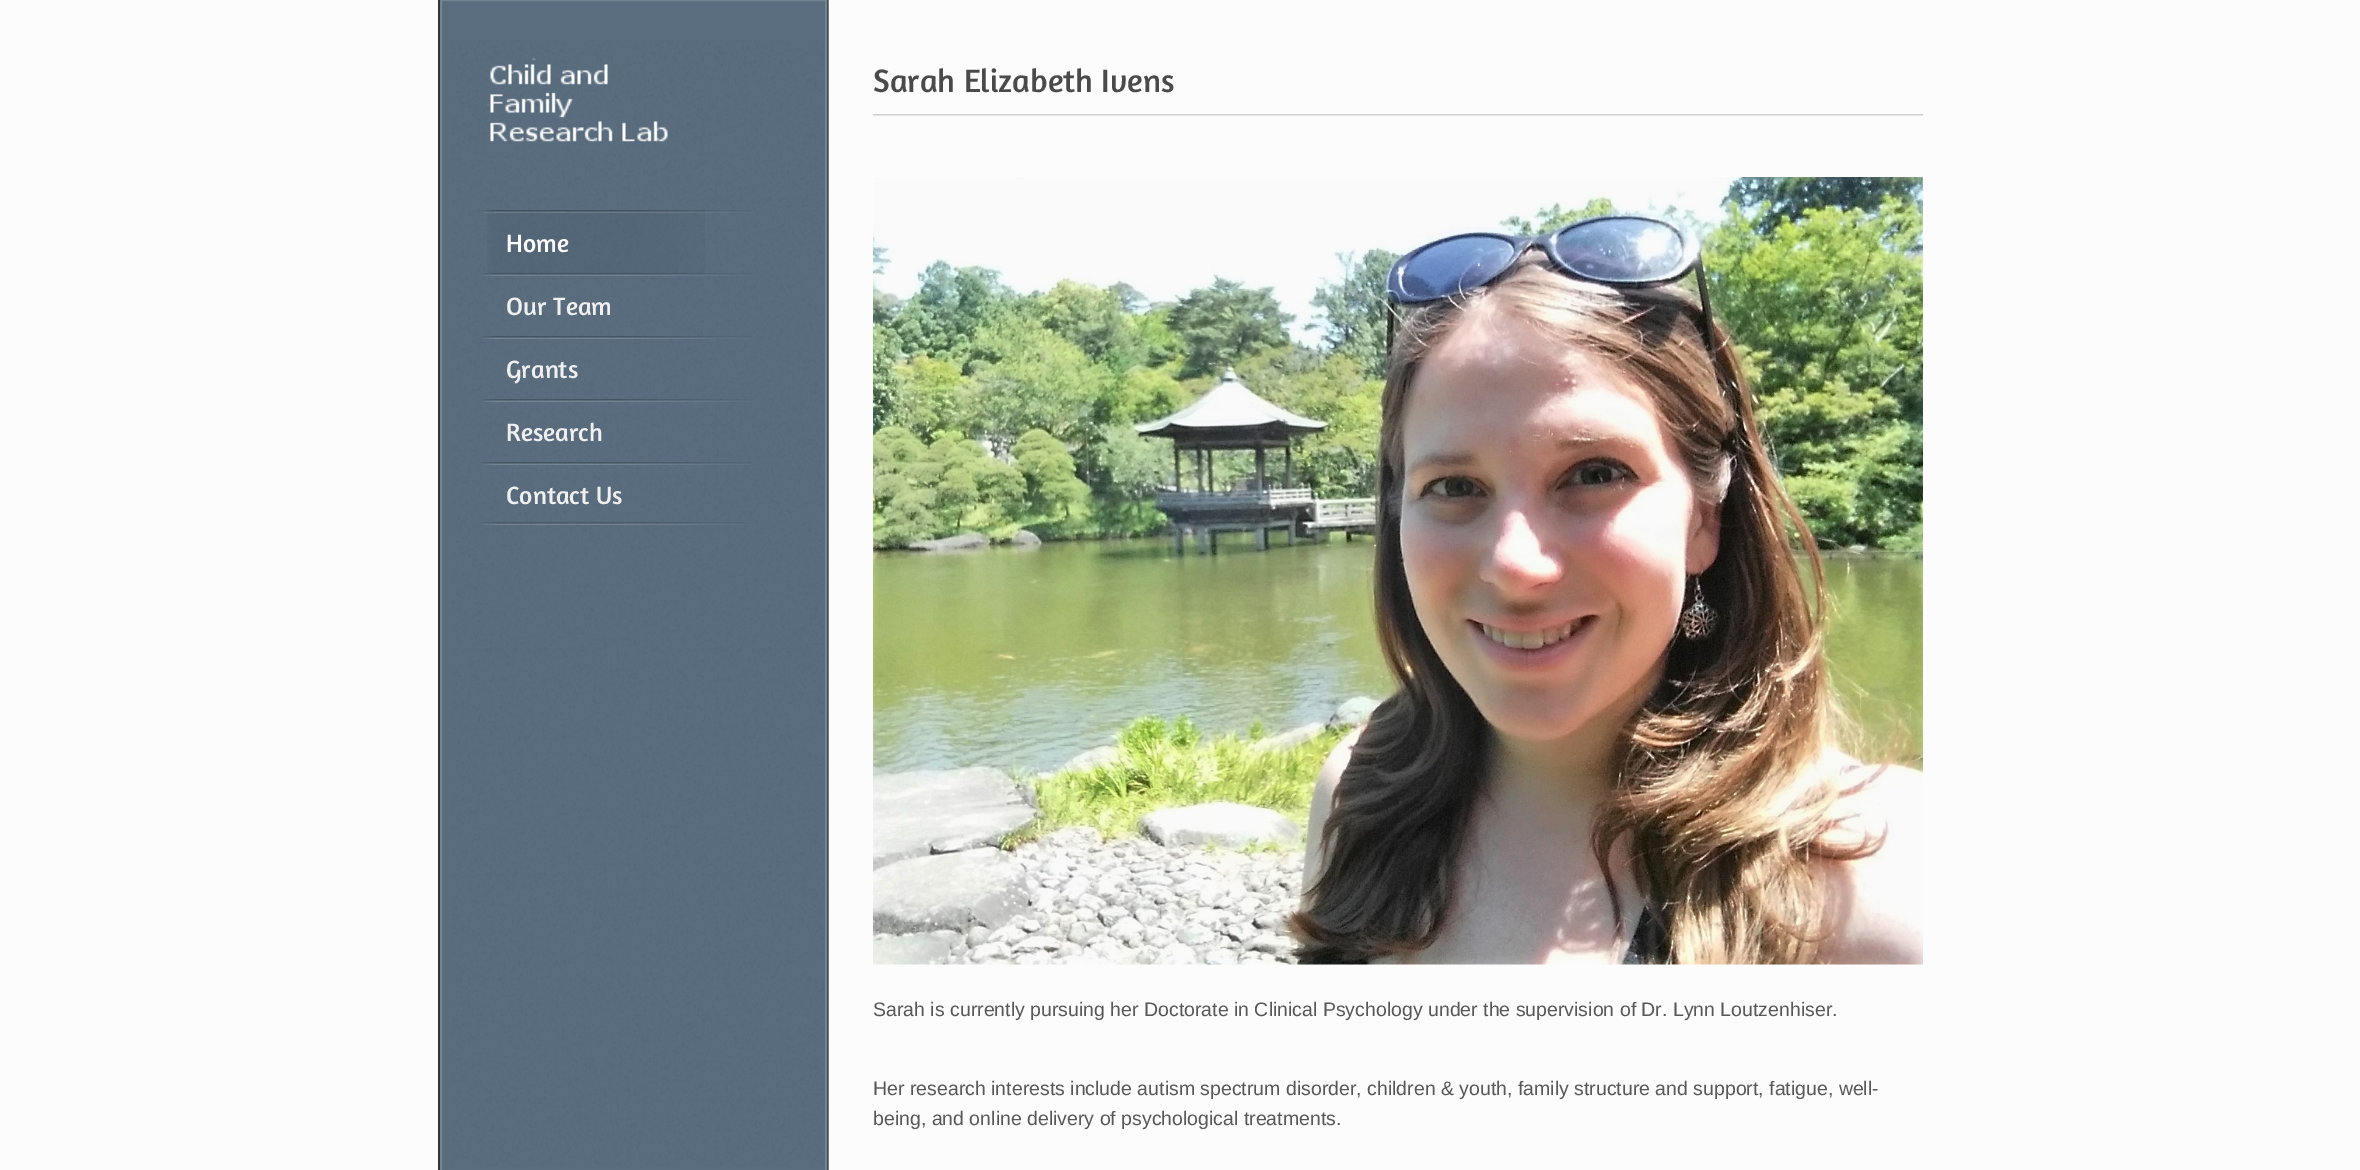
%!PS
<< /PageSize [2360 1170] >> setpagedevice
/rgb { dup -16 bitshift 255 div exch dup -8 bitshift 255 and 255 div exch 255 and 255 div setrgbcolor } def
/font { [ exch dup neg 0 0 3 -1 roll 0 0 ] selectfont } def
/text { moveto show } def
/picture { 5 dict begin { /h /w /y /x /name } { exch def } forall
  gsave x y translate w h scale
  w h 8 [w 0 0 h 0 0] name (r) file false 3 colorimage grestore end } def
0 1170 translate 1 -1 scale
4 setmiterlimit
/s1 { /Amaranth-Regular 25.5 font 16#FFFFFF rgb } def
/s2 { /Amaranth-Regular 25.5 font 16#F0F0F0 rgb } def
/s3 { /Amaranth-Regular 33 font 16#4A4A4A rgb } def
/s4 { /LiberationSans-Regular 19.5 font 16#585858 rgb } def
16#FCFCFC rgb
0 0 2360 1170 rectfill
16#7E7E7E rgb
828 0 1 1170 rectfill
16#596D7F rgb
442 1 383 1169 rectfill
16#2D3740 rgb
827 0 1 1170 rectfill
(pic1.raw) 452 40 373 1126 picture
16#728392 rgb
2 setlinewidth
441 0 385 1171 rectstroke
16#2D3740 rgb
438 0 2 1170 rectfill
(pic2.raw) 487 58 181 84 picture
(pic3.raw) 481 522 270 3 picture
(pic4.raw) 481 210 271 3 picture
(pic5.raw) 487 210 218 63 picture
s1
(Home) 506 252 text
(pic6.raw) 481 273 271 3 picture
s2
(Our Team) 506 315 text
(pic7.raw) 481 336 271 3 picture
(Grants) 506 378 text
(pic8.raw) 481 399 271 3 picture
(Research) 506 441 text
(pic9.raw) 481 462 271 3 picture
(Contact Us) 506 504 text
s3
(Sarah Elizabeth Ivens) 873 92 text
(pic10.raw) 873 114 1050 2 picture
(pic11.raw) 873 177 1050 788 picture
s4
(Sarah is currently pursuing her Doctorate in Clinical Psychology under the supervision of Dr. Lynn Loutzenhiser.) 873 1016 text
(Her research interests include autism spectrum disorder, children & youth, family structure and support, fatigue, well-) 873 1095 text
(being, and online delivery of psychological treatments.) 873 1125 text
showpage
